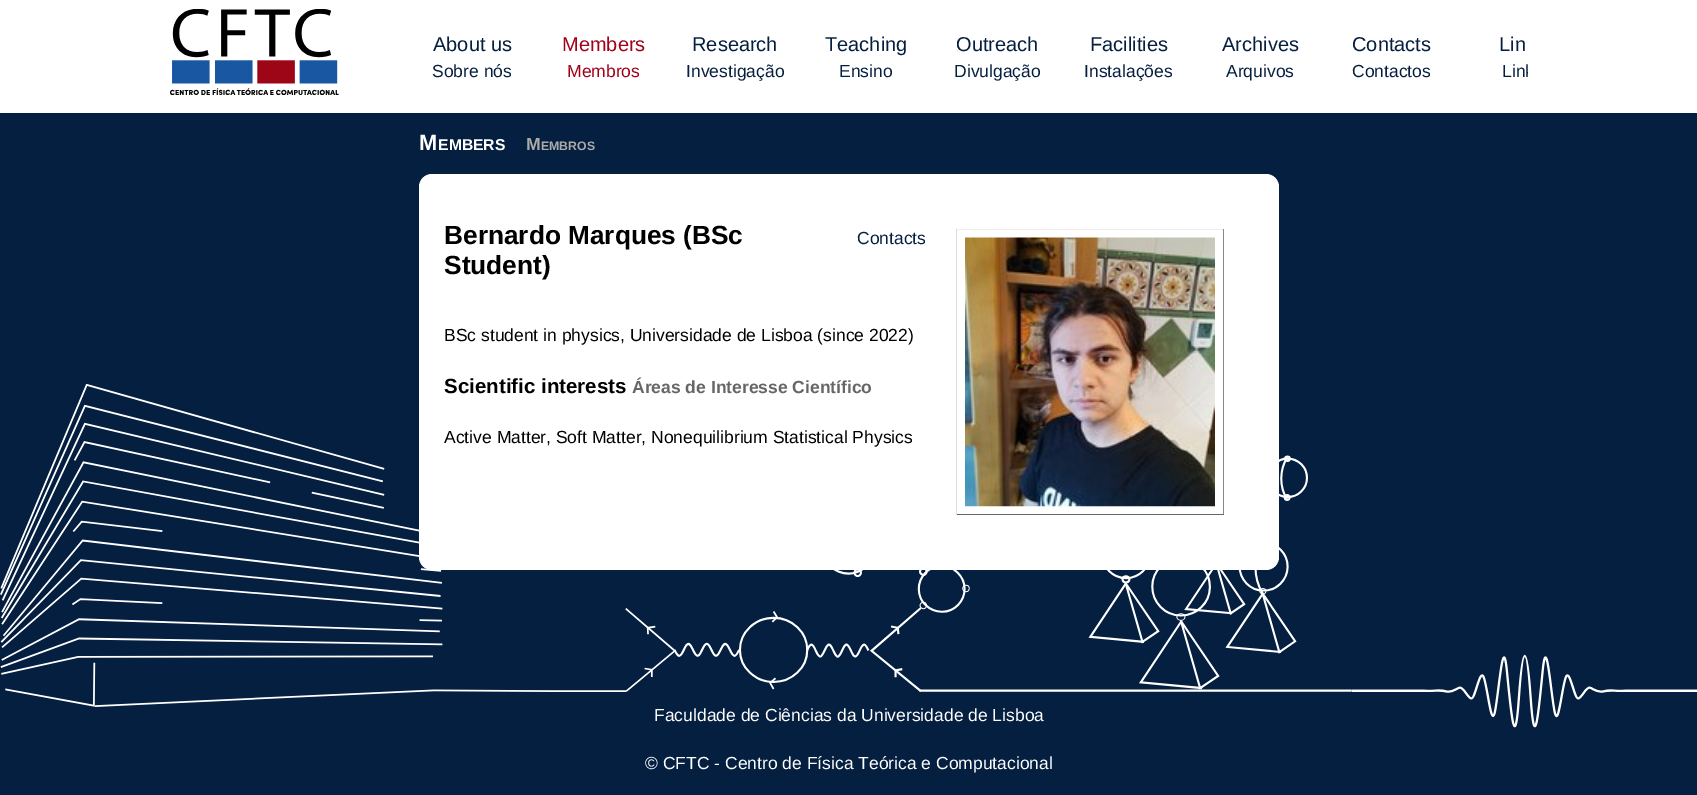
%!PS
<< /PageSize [1697 795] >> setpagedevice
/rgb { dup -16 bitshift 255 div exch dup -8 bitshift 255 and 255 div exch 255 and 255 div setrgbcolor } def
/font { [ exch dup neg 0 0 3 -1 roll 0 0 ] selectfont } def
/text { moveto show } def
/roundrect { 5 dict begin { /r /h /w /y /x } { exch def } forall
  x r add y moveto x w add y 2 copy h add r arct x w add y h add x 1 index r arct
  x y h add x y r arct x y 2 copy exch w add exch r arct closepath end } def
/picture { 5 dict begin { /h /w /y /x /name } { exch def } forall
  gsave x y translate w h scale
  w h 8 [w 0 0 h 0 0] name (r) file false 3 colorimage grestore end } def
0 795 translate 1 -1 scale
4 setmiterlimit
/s1 { /LiberationSans-Regular 20 font 16#051F40 rgb } def
/s2 { /LiberationSans-Regular 17.5 font 16#051F40 rgb } def
/s3 { /LiberationSans-Regular 20 font 16#A10018 rgb } def
/s4 { /LiberationSans-Regular 17.5 font 16#A10018 rgb } def
/s5 { /LiberationSans-Bold 22 font 16#FFFFFF rgb } def
/s6 { /LiberationSans-Bold 15.75 font 16#FFFFFF rgb } def
/s7 { /LiberationSans-Bold 17.5 font 16#AAAAAA rgb } def
/s8 { /LiberationSans-Bold 12.25 font 16#AAAAAA rgb } def
/s9 { /LiberationSans-Bold 26.25 font 16#000000 rgb } def
/s10 { /LiberationSans-Regular 17.5 font 16#000000 rgb } def
/s11 { /LiberationSans-Bold 20.5 font 16#000000 rgb } def
/s12 { /LiberationSans-Bold 17.5 font 16#666666 rgb } def
/s13 { /LiberationSans-Regular 17.5 font 16#FFFFFF rgb } def
16#051F40 rgb
0 0 1697 795 rectfill
(pic1.raw) 0 384 1697 344 picture
16#FFFFFF rgb
0 0 1697 113 rectfill
(pic2.raw) 170 9 169 86 picture
s1
(About us) 433 51 text
s2
(Sobre nós) 432 77 text
s3
(Members) 562 51 text
s4
(Membros) 567 77 text
s1
(Research) 692 51 text
s2
(Investigação) 686 77 text
s1
(Teaching) 825 51 text
s2
(Ensino) 839 77 text
s1
(Outreach) 956 51 text
s2
(Divulgação) 954 77 text
s1
(Facilities) 1090 51 text
s2
(Instalações) 1084 77 text
s1
(Archives) 1222 51 text
s2
(Arquivos) 1226 77 text
s1
(Contacts) 1352 51 text
s2
(Contactos) 1352 77 text
s1
(Lin) 1499 51 text
gsave
406 23 1122 67 rectclip
s2
(Link) 1502 77 text
grestore
s5
(M) 419 150 text
s6
(EMBERS) 438 150 text
s7
(M) 526 150 text
s8
(EMBROS) 541 150 text
16#FFFFFF rgb
419 174 860 396 13 roundrect fill
s9
(Bernardo Marques \(BSc) 444 244 text
(Student\)) 444 274 text
s2
(Contacts) 857 244 text
16#EEEEEE rgb
956 229 268 1 rectfill
16#888888 rgb
1223 229 1 286 rectfill
16#666666 rgb
956 514 268 1 rectfill
16#DDDDDD rgb
956 229 1 286 rectfill
(pic3.raw) 965 237 250 270 picture
s10
(BSc student in physics, Universidade de Lisboa \(since 2022\)) 444 341 text
s11
(Scientific interests) 444 393 text
s12
(Áreas de Interesse Científico) 632 393 text
s10
(Active Matter, Soft Matter, Nonequilibrium Statistical Physics) 444 443 text
s13
(Faculdade de Ciências da Universidade de Lisboa) 654 721 text
(© CFTC - Centro de Física Teórica e Computacional) 645 769 text
showpage
